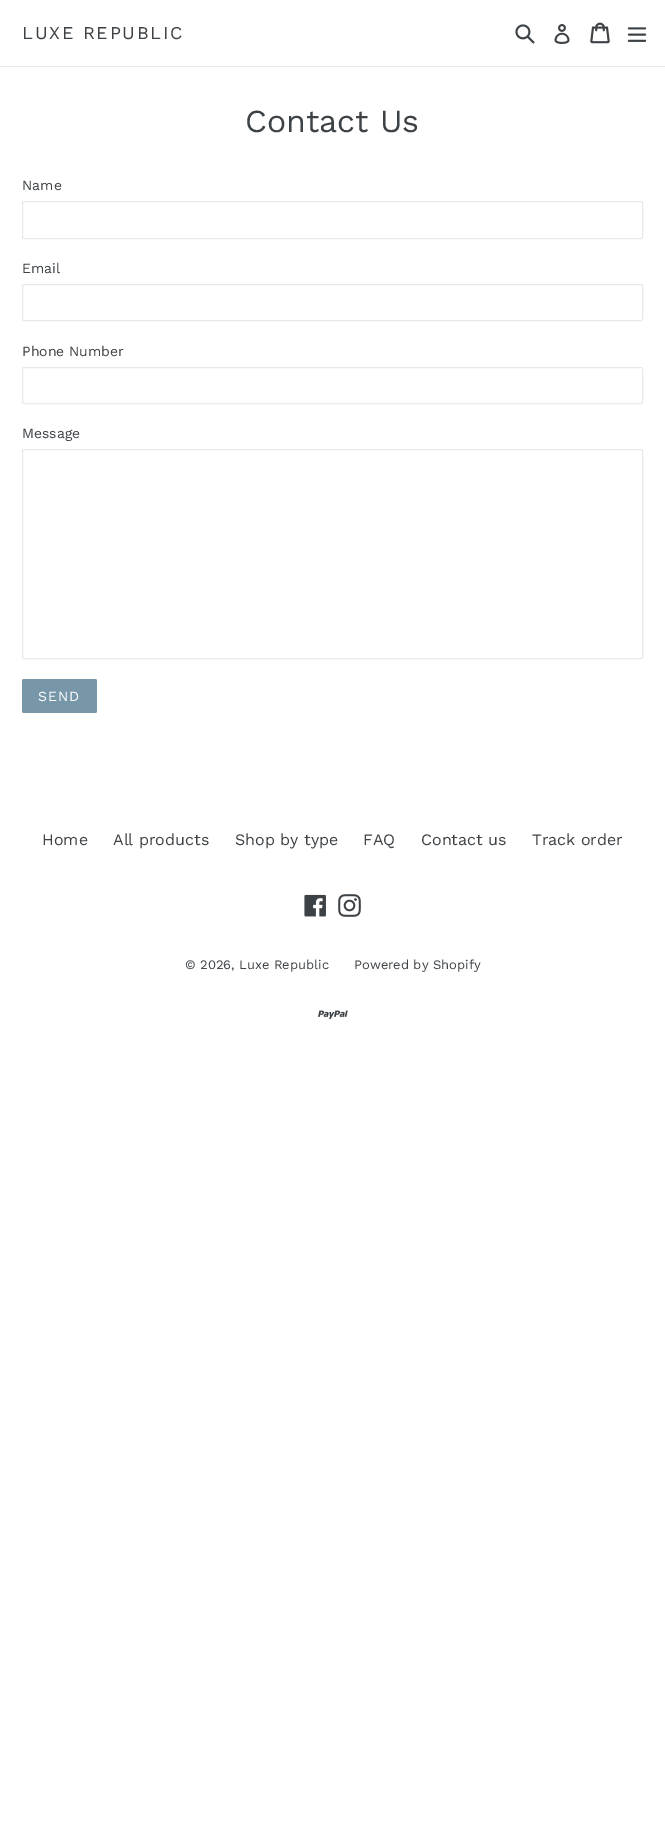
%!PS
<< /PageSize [665 1839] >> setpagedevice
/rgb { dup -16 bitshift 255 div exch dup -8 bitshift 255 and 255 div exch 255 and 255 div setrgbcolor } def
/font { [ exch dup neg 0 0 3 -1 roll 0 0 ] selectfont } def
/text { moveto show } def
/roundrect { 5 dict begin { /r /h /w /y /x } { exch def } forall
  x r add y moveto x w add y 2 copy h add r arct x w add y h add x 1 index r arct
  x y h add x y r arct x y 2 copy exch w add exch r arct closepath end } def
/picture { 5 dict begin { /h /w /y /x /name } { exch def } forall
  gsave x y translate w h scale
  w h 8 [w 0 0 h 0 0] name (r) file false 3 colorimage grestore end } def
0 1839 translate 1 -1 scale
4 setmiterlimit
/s1 { /WorkSans-Regular 32 font 16#3D4246 rgb } def
/s2 { /WorkSans-Regular 14 font 16#3D4246 rgb } def
/s3 { /WorkSans-Regular 16 font 16#3D4246 rgb } def
/s4 { /WorkSans-Regular 13 font 16#3D4246 rgb } def
16#FFFFFF rgb
0 0 665 1839 rectfill
16#E8E9EB rgb
0 66 665 1 rectfill
/WorkSans-Regular 18 font
16#3D4246 rgb
22 39 moveto 1.75 0 (LUXE REPUBLIC) ashow
(pic1.raw) 515 24 20 20 picture
(pic2.raw) 554 24 16 20 picture
(pic3.raw) 590 22 20 22 picture
(pic4.raw) 627 27 20 15 picture
s1
(Contact Us) 245 132 text
s2
(Name) 22 190 text
16#E8E9EB rgb
22.5 201.5 620 37 1.5 roundrect stroke
s2
(Email) 22 273 text
16#E8E9EB rgb
22.5 284.5 620 36 1.5 roundrect stroke
s2
(Phone Number) 22 356 text
16#E8E9EB rgb
22.5 367.5 620 36 1.5 roundrect stroke
s2
(Message) 22 438 text
16#E8E9EB rgb
22.5 449.5 620 209 1.5 roundrect stroke
16#7796A8 rgb
22 679 75 34 2 roundrect fill
16#FFFFFF rgb
38 701 moveto 1 0 (SEND) ashow
s3
(Home) 42 845 text
(All products) 113 845 text
(Shop by type) 235 845 text
(FAQ) 363 845 text
(Contact us) 421 845 text
(Track order) 532 845 text
(pic5.raw) 304 894 22 23 picture
(pic6.raw) 338 894 23 23 picture
s4
(© 2026, Luxe Republic) 185 969 text
(Powered by Shopify) 354 969 text
(pic7.raw) 318 1010 30 9 picture
showpage
